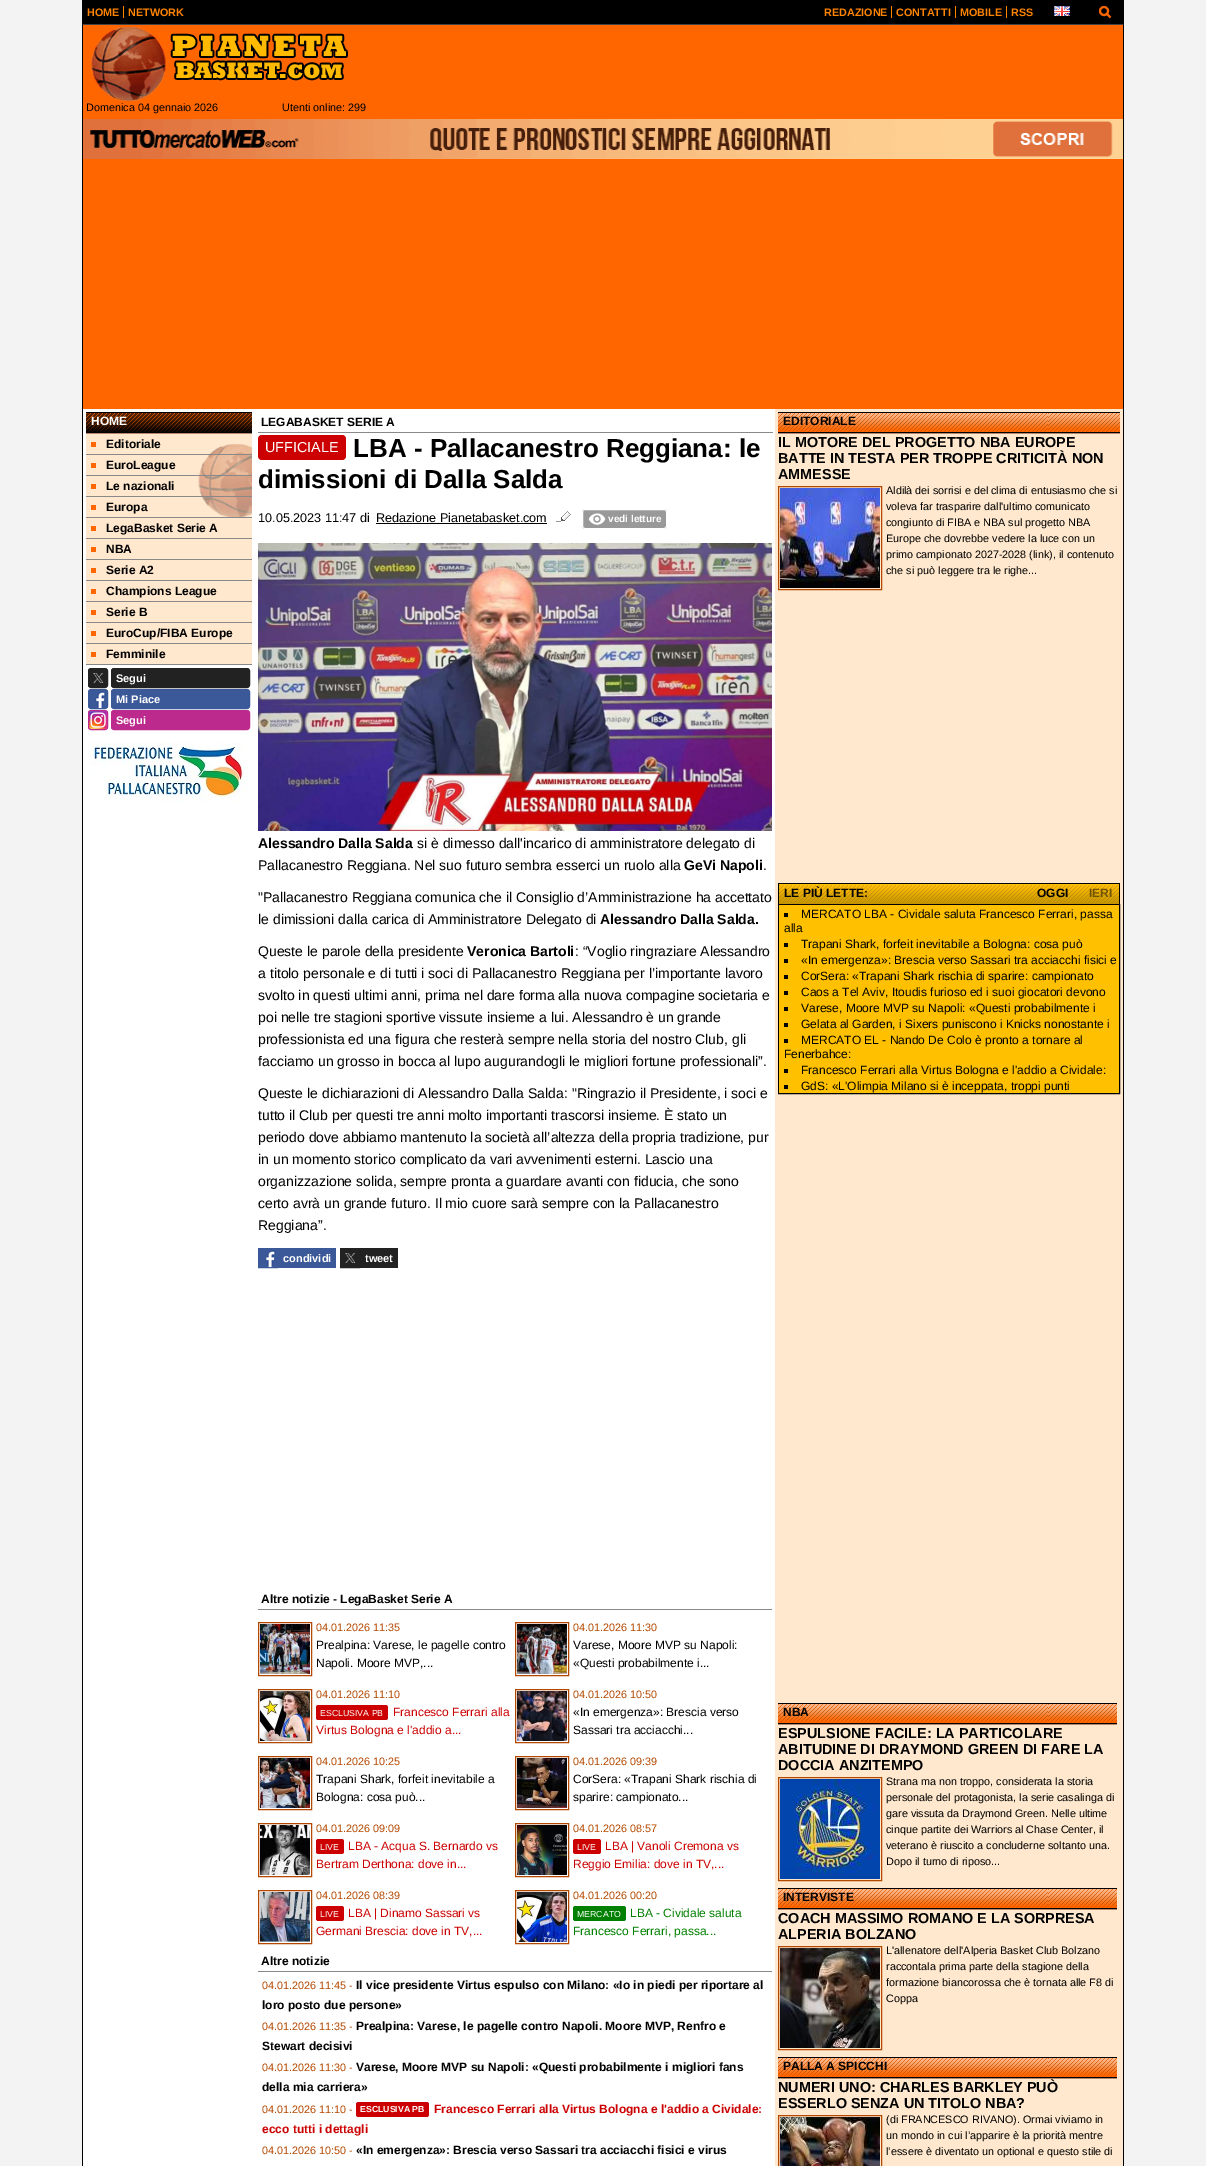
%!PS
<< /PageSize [1206 2166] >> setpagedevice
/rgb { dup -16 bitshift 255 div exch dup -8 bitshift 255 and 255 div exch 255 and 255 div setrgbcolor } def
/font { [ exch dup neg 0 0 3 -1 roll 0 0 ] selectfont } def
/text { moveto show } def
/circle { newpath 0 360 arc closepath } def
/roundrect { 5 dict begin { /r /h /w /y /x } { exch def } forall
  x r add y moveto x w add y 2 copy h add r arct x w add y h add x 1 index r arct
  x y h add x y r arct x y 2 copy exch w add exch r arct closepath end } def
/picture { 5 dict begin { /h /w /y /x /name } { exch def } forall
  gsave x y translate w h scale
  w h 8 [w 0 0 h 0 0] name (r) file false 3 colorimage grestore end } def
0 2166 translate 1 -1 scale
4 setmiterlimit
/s1 { /LiberationSans-Bold 10.8 font 16#FF8400 rgb } def
/s2 { /LiberationSans-Regular 10.8 font 16#000000 rgb } def
/s3 { /LiberationSans-Bold 12 font 16#FFFFFF rgb } def
/s4 { /LiberationSans-Bold 12 font 16#000000 rgb } def
/s5 { /LiberationSans-Bold 11 font 16#FFFFFF rgb } def
/s6 { /LiberationSans-Regular 14.4 font 16#FFFFFF rgb } def
/s7 { /LiberationSans-Bold 26 font 16#000000 rgb } def
/s8 { /LiberationSans-Regular 12.6 font 16#000000 rgb } def
/s9 { /LiberationSans-Bold 10 font 16#FFFFFF rgb } def
/s10 { /LiberationSans-Bold 14 font 16#000000 rgb } def
/s11 { /LiberationSans-Regular 14 font 16#000000 rgb } def
/s12 { /LiberationSans-Regular 10.8 font 16#B34800 rgb } def
/s13 { /LiberationSans-Regular 12 font 16#000000 rgb } def
/s14 { /LiberationSans-Regular 8.75 font 16#FFFFFF rgb } def
/s15 { /LiberationSans-Regular 12 font 16#CC0000 rgb } def
/s16 { /LiberationSans-Regular 12 font 16#008000 rgb } def
/s17 { /LiberationSans-Bold 8.75 font 16#FFFFFF rgb } def
/s18 { /LiberationSans-Bold 12 font 16#CC0000 rgb } def
/s19 { /LiberationSans-Bold 14.4 font 16#000000 rgb } def
/s20 { /LiberationSans-Bold 12 font 16#705402 rgb } def
16#F3F3F3 rgb
0 0 1206 2166 rectfill
16#FFFFFF rgb
83 409 692 1757 rectfill
16#000000 rgb
1123 0 1 2166 rectfill
82 0 1 2166 rectfill
83 0 1040 24 rectfill
16#444444 rgb
83 24 1040 1 rectfill
s1
(HOME) 87 16 text
123 6 1 12 rectfill
(NETWORK) 128 16 text
(REDAZIONE) 824 16 text
891 6 1 12 rectfill
(CONTATTI) 896 16 text
955 6 1 12 rectfill
(MOBILE) 960 16 text
1006 6 1 12 rectfill
(RSS) 1011 16 text
(pic1.raw) 1054 6 16 10 picture
16#FF6600 rgb
2 setlinewidth
1110.5 17.5 moveto 1106.5 13.5 lineto stroke
1104 11 4 circle stroke
83 25 1040 94 rectfill
(pic2.raw) 91 27 257 74 picture
s2
(Domenica 04 gennaio 2026) 86 111 text
(Utenti online: 299) 282 111 text
(pic3.raw) 83 119 1040 40 picture
16#FF6600 rgb
83 159 1040 250 rectfill
(pic4.raw) 86 412 166 22 picture
s3
(HOME) 91 425 text
16#FFE8CD rgb
86 434 166 230 rectfill
(pic5.raw) 198 444 54 73 picture
16#898989 rgb
86 454 166 1 rectfill
16#FF6600 rgb
91 442 5 5 rectfill
s4
(Editoriale) 106 448 text
16#898989 rgb
86 475 166 1 rectfill
16#FF6600 rgb
91 463 5 5 rectfill
s4
(EuroLeague) 106 469 text
16#898989 rgb
86 496 166 1 rectfill
16#FF6600 rgb
91 484 5 5 rectfill
s4
(Le nazionali) 106 490 text
16#898989 rgb
86 517 166 1 rectfill
16#FF6600 rgb
91 505 5 5 rectfill
s4
(Europa) 106 511 text
16#898989 rgb
86 538 166 1 rectfill
16#FF6600 rgb
91 526 5 5 rectfill
s4
(LegaBasket Serie A) 106 532 text
16#898989 rgb
86 559 166 1 rectfill
16#FF6600 rgb
91 547 5 5 rectfill
s4
(NBA) 106 553 text
16#898989 rgb
86 580 166 1 rectfill
16#FF6600 rgb
91 568 5 5 rectfill
s4
(Serie A2) 106 574 text
16#898989 rgb
86 601 166 1 rectfill
16#FF6600 rgb
91 589 5 5 rectfill
s4
(Champions League) 106 595 text
16#898989 rgb
86 622 166 1 rectfill
16#FF6600 rgb
91 610 5 5 rectfill
s4
(Serie B) 106 616 text
16#898989 rgb
86 643 166 1 rectfill
16#FF6600 rgb
91 631 5 5 rectfill
s4
(EuroCup/FIBA Europe) 106 637 text
16#898989 rgb
86 664 166 1 rectfill
16#FF6600 rgb
91 652 5 5 rectfill
s4
(Femminile) 106 658 text
(pic6.raw) 88 669 20 18 picture
16#222222 rgb
1 setlinewidth
88.5 668.5 19 19 2.5 roundrect stroke
111.5 668.5 138 19 2.5 roundrect gsave fill grestore
stroke
s5
(Segui) 116 682 text
(pic7.raw) 89 690 19 18 picture
16#3B5998 rgb
88.5 689.5 19 19 2.5 roundrect stroke
111.5 689.5 138 19 2.5 roundrect gsave fill grestore
stroke
s5
(Mi Piace) 116 703 text
(pic8.raw) 88 711 20 18 picture
16#BC2A8D rgb
88.5 710.5 19 19 2.5 roundrect stroke
111.5 710.5 138 19 2.5 roundrect gsave fill grestore
stroke
s5
(Segui) 116 724 text
(pic9.raw) 89 742 160 60 picture
16#898989 rgb
258 432 515 1 rectfill
s4
(LEGABASKET SERIE A) 261 426 text
16#CC0000 rgb
258 435 88 25 4 roundrect fill
s6
(UFFICIALE) 265 452 text
s7
(LBA - Pallacanestro Reggiana: le) 353 457 text
(dimissioni di Dalla Salda) 258 488 text
s8
(10.05.2023 11:47 di) 258 522 text
(Redazione Pianetabasket.com) 376 522 text
376 523 171 1 rectfill
(pic10.raw) 556 511 15 11 picture
16#999999 rgb
582 509 85 20 3 roundrect fill
(pic11.raw) 588 513 18 12 picture
16#FFFFFF rgb
582.5 509.5 84 19 2.5 roundrect stroke
s9
(vedi letture) 608 522 text
(pic12.raw) 258 543 514 288 picture
s10
(Alessandro Dalla Salda) 258 848 text
s11
(si è dimesso dall'incarico di amministratore delegato di) 417 848 text
(Pallacanestro Reggiana. Nel suo futuro sembra esserci un ruolo alla) 258 870 text
s10
(GeVi Napoli) 684 870 text
s11
(.) 763 870 text
("Pallacanestro Reggiana comunica che il Consiglio d’Amministrazione ha accettato) 258 902 text
(le dimissioni dalla carica di Amministratore Delegato di) 258 924 text
s10
(Alessandro Dalla Salda.) 600 924 text
s11
(Queste le parole della presidente) 258 956 text
s10
(Veronica Bartoli) 467 956 text
s11
(: “Voglio ringraziare Alessandro) 575 956 text
(a titolo personale e di tutti i soci di Pallacanestro Reggiana per l’importante lavoro) 258 978 text
(svolto in questi ultimi anni, prima nel dare forma alla nuova compagine societaria e) 258 1000 text
(poi nelle tre stagioni sportive vissute insieme a lui. Alessandro è un grande) 258 1022 text
(professionista ed una figura che resterà sempre nella storia del nostro Club, gli) 258 1044 text
(facciamo un grosso in bocca al lupo augurandogli le migliori fortune professionali”.) 258 1066 text
(Queste le dichiarazioni di Alessandro Dalla Salda: "Ringrazio il Presidente, i soci e) 258 1098 text
(tutto il Club per questi tre anni molto importanti trascorsi insieme. È stato un) 258 1120 text
(periodo dove abbiamo mantenuto la società all’altezza della propria tradizione, pur) 258 1142 text
(in un momento storico complicato da vari avvenimenti esterni. Lascio una) 258 1164 text
(organizzazione solida, sempre pronta a guardare avanti con fiducia, che sono) 258 1186 text
(certo avrà un grande futuro. Il mio cuore sarà sempre con la Pallacanestro) 258 1208 text
(Reggiana”.) 258 1230 text
(pic13.raw) 259 1249 18 18 picture
16#3B5998 rgb
258.5 1248.5 19 19 rectstroke
278 1248 58 20 rectfill
s5
(condividi) 283 1262 text
(pic14.raw) 341 1249 18 18 picture
16#222222 rgb
340.5 1248.5 19 19 rectstroke
360 1248 38 20 rectfill
s5
(tweet) 365 1262 text
16#898989 rgb
258 1609 514 1 rectfill
s4
(Altre notizie - LegaBasket Serie A) 261 1603 text
16#B34800 rgb
258.5 1622.5 53 53 rectstroke
(pic15.raw) 260 1624 50 50 picture
s12
(04.01.2026 11:35) 316 1631 text
s13
(Prealpina: Varese, le pagelle contro) 316 1649 text
(Napoli. Moore MVP,...) 316 1667 text
16#B34800 rgb
515.5 1622.5 53 53 rectstroke
(pic16.raw) 517 1624 50 50 picture
s12
(04.01.2026 11:30) 573 1631 text
s13
(Varese, Moore MVP su Napoli:) 573 1649 text
(«Questi probabilmente i...) 573 1667 text
16#B34800 rgb
258.5 1689.5 53 53 rectstroke
(pic17.raw) 260 1691 50 50 picture
s12
(04.01.2026 11:10) 316 1698 text
16#CC0000 rgb
316 1705 72 15 2.5 roundrect fill
s14
(ESCLUSIVA PB) 320 1716 text
s15
(Francesco Ferrari alla) 393 1716 text
(Virtus Bologna e l'addio a...) 316 1734 text
16#B34800 rgb
515.5 1689.5 53 53 rectstroke
(pic18.raw) 517 1691 50 50 picture
s12
(04.01.2026 10:50) 573 1698 text
s13
(«In emergenza»: Brescia verso) 573 1716 text
(Sassari tra acciacchi...) 573 1734 text
16#B34800 rgb
258.5 1756.5 53 53 rectstroke
(pic19.raw) 260 1758 50 50 picture
s12
(04.01.2026 10:25) 316 1765 text
s13
(Trapani Shark, forfeit inevitabile a) 316 1783 text
(Bologna: cosa può...) 316 1801 text
16#B34800 rgb
515.5 1756.5 53 53 rectstroke
(pic20.raw) 517 1758 50 50 picture
s12
(04.01.2026 09:39) 573 1765 text
s13
(CorSera: «Trapani Shark rischia di) 573 1783 text
(sparire: campionato...) 573 1801 text
16#B34800 rgb
258.5 1823.5 53 53 rectstroke
(pic21.raw) 260 1825 50 50 picture
s12
(04.01.2026 09:09) 316 1832 text
16#CC0000 rgb
316 1839 28 15 2.5 roundrect fill
s14
(LIVE) 320 1850 text
s15
(LBA - Acqua S. Bernardo vs) 348 1850 text
(Bertram Derthona: dove in...) 316 1868 text
16#B34800 rgb
515.5 1823.5 53 53 rectstroke
(pic22.raw) 517 1825 50 50 picture
s12
(04.01.2026 08:57) 573 1832 text
16#CC0000 rgb
573 1839 28 15 2.5 roundrect fill
s14
(LIVE) 577 1850 text
s15
(LBA | Vanoli Cremona vs) 605 1850 text
(Reggio Emilia: dove in TV,...) 573 1868 text
16#B34800 rgb
258.5 1890.5 53 53 rectstroke
(pic23.raw) 260 1892 50 50 picture
s12
(04.01.2026 08:39) 316 1899 text
16#CC0000 rgb
316 1906 28 15 2.5 roundrect fill
s14
(LIVE) 320 1917 text
s15
(LBA | Dinamo Sassari vs) 348 1917 text
(Germani Brescia: dove in TV,...) 316 1935 text
16#B34800 rgb
515.5 1890.5 53 53 rectstroke
(pic24.raw) 517 1892 50 50 picture
s12
(04.01.2026 00:20) 573 1899 text
16#008000 rgb
573 1906 53 15 2.5 roundrect fill
s14
(MERCATO) 577 1917 text
s16
(LBA - Cividale saluta) 630 1917 text
(Francesco Ferrari, passa...) 573 1935 text
16#898989 rgb
258 1971 514 1 rectfill
s4
(Altre notizie) 261 1965 text
s12
(04.01.2026 11:45 -) 262 1989 text
s4
(Il vice presidente Virtus espulso con Milano: «Io in piedi per riportare al) 356 1989 text
(loro posto due persone») 262 2009 text
s12
(04.01.2026 11:35 -) 262 2030 text
s4
(Prealpina: Varese, le pagelle contro Napoli. Moore MVP, Renfro e) 356 2030 text
(Stewart decisivi) 262 2050 text
s12
(04.01.2026 11:30 -) 262 2071 text
s4
(Varese, Moore MVP su Napoli: «Questi probabilmente i migliori fans) 356 2071 text
(della mia carriera») 262 2091 text
16#CC0000 rgb
356 2102 73 15 2.5 roundrect fill
s17
(ESCLUSIVA PB) 360 2112 text
s18
(Francesco Ferrari alla Virtus Bologna e l'addio a Cividale:) 434 2113 text
(ecco tutti i dettagli) 262 2133 text
s12
(04.01.2026 11:10 -) 262 2113 text
(04.01.2026 10:50 -) 262 2154 text
s4
(«In emergenza»: Brescia verso Sassari tra acciacchi fisici e virus) 356 2154 text
16#FFE8CD rgb
775 409 348 1757 rectfill
(pic25.raw) 778 412 342 22 picture
s4
(EDITORIALE) 783 425 text
s19
(IL MOTORE DEL PROGETTO NBA EUROPE) 778 447 text
(BATTE IN TESTA PER TROPPE CRITICITÀ NON) 778 463 text
(AMMESSE) 778 479 text
16#B34800 rgb
778.5 486.5 103 103 rectstroke
(pic26.raw) 780 488 100 100 picture
s2
(Aldilà dei sorrisi e del clima di entusiasmo che si) 886 494 text
(voleva far trasparire dall'ultimo comunicato) 886 510 text
(congiunto di FIBA e NBA sul progetto NBA) 886 526 text
(Europe che dovrebbe vedere la luce con un) 886 542 text
(primo campionato 2027-2028 \(link\), il contenuto) 886 558 text
(che si può leggere tra le righe...) 886 574 text
(pic27.raw) 779 884 340 20 picture
778 883 342 1 rectfill
1119 883 1 21 rectfill
778 883 1 21 rectfill
s4
(LE PIÙ LETTE:) 784 897 text
(OGGI) 1037 897 text
s20
(IERI) 1089 897 text
16#000000 rgb
778.5 904.5 341 189 rectstroke
16#FFC000 rgb
779 905 340 188 rectfill
16#000000 rgb
784 913 4 4 rectfill
s13
(MERCATO LBA - Cividale saluta Francesco Ferrari, passa) 801 918 text
(alla) 784 932 text
784 943 4 4 rectfill
(Trapani Shark, forfeit inevitabile a Bologna: cosa può) 801 948 text
784 959 4 4 rectfill
(«In emergenza»: Brescia verso Sassari tra acciacchi fisici e) 801 964 text
784 975 4 4 rectfill
(CorSera: «Trapani Shark rischia di sparire: campionato) 801 980 text
784 991 4 4 rectfill
(Caos a Tel Aviv, Itoudis furioso ed i suoi giocatori devono) 801 996 text
784 1007 4 4 rectfill
(Varese, Moore MVP su Napoli: «Questi probabilmente i) 801 1012 text
784 1023 4 4 rectfill
(Gelata al Garden, i Sixers puniscono i Knicks nonostante i) 801 1028 text
784 1039 4 4 rectfill
(MERCATO EL - Nando De Colo è pronto a tornare al) 801 1044 text
(Fenerbahce:) 784 1058 text
784 1069 4 4 rectfill
(Francesco Ferrari alla Virtus Bologna e l'addio a Cividale:) 801 1074 text
784 1085 4 4 rectfill
(GdS: «L'Olimpia Milano si è inceppata, troppi punti) 801 1090 text
(pic28.raw) 778 1703 339 22 picture
s4
(NBA) 783 1716 text
s19
(ESPULSIONE FACILE: LA PARTICOLARE) 778 1738 text
(ABITUDINE DI DRAYMOND GREEN DI FARE LA) 778 1754 text
(DOCCIA ANZITEMPO) 778 1770 text
16#B34800 rgb
778.5 1777.5 103 103 rectstroke
(pic29.raw) 780 1779 100 100 picture
s2
(Strana ma non troppo, considerata la storia) 886 1785 text
(personale del protagonista, la serie casalinga di) 886 1801 text
(gare vissuta da Draymond Green. Nelle ultime) 886 1817 text
(cinque partite dei Warriors al Chase Center, il) 886 1833 text
(veterano è riuscito a concluderne soltanto una.) 886 1849 text
(Dopo il turno di riposo...) 886 1865 text
(pic28.raw) 778 1888 339 22 picture
s4
(INTERVISTE) 783 1901 text
s19
(COACH MASSIMO ROMANO E LA SORPRESA) 778 1923 text
(ALPERIA BOLZANO) 778 1939 text
16#B34800 rgb
778.5 1946.5 103 103 rectstroke
(pic30.raw) 780 1948 100 100 picture
s2
(L'allenatore dell'Alperia Basket Club Bolzano) 886 1954 text
(raccontala prima parte della stagione della) 886 1970 text
(formazione biancorossa che è tornata alle F8 di) 886 1986 text
(Coppa) 886 2002 text
(pic28.raw) 778 2057 339 22 picture
s4
(PALLA A SPICCHI) 783 2070 text
s19
(NUMERI UNO: CHARLES BARKLEY PUÒ) 778 2092 text
(ESSERLO SENZA UN TITOLO NBA?) 778 2108 text
16#B34800 rgb
778.5 2115.5 103 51 rectstroke
(pic31.raw) 780 2117 100 49 picture
s2
(\(di FRANCESCO RIVANO\). Ormai viviamo in) 886 2123 text
(un mondo in cui l’apparire è la priorità mentre) 886 2139 text
(l’essere è diventato un optional e questo stile di) 886 2155 text
showpage
